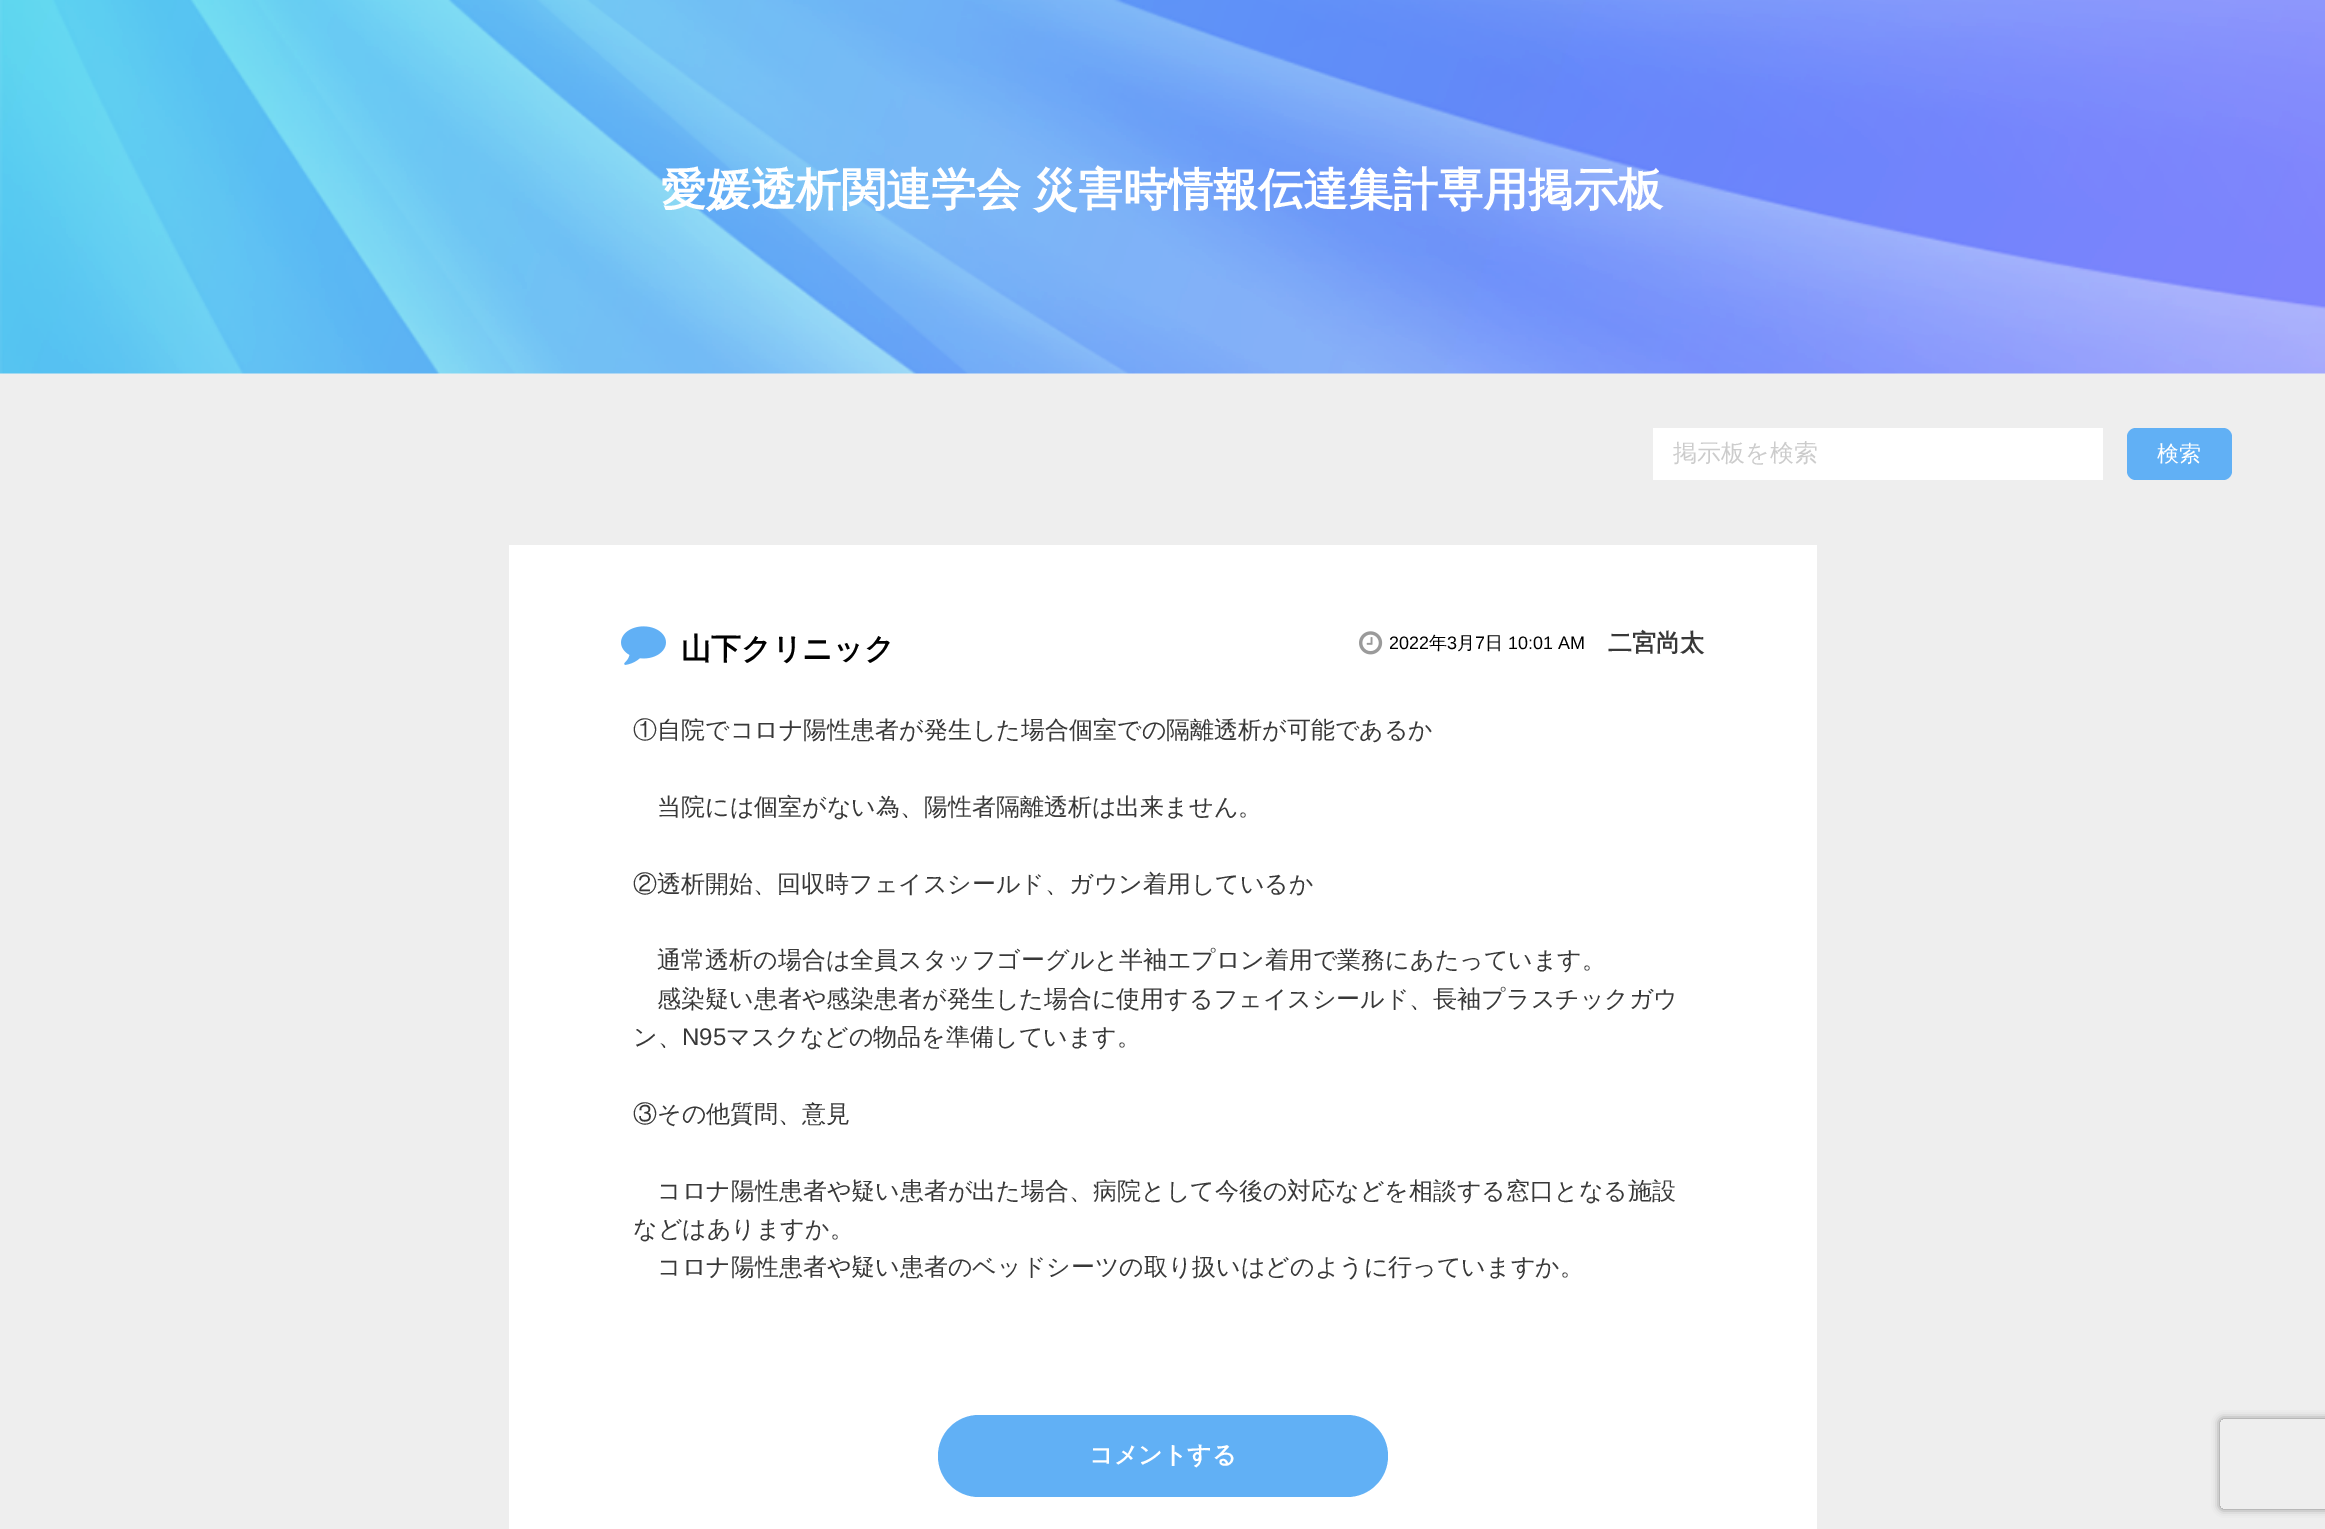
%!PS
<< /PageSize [2325 1529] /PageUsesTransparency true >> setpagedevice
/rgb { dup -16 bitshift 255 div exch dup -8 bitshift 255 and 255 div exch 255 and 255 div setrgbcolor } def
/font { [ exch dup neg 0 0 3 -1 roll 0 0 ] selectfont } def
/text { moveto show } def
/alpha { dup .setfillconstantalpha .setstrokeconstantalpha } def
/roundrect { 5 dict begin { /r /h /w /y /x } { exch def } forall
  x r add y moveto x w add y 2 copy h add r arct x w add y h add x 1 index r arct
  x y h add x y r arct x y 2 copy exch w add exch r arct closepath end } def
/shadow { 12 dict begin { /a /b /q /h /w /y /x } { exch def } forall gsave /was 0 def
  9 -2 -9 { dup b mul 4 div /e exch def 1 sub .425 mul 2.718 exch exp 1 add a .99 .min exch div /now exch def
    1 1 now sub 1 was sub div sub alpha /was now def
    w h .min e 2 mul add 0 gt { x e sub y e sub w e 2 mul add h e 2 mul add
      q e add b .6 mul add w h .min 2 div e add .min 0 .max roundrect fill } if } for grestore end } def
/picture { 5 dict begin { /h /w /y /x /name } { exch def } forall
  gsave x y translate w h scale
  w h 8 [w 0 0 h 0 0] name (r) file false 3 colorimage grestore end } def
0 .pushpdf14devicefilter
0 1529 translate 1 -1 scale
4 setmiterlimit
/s1 { /WenQuanYiZenHei-Medium 24 font 16#CCCCCC rgb } def
/s2 { /WenQuanYiZenHei-Medium 22 font 16#FFFFFF rgb } def
/s3 { /WenQuanYiZenHei-Bold 30 font 16#000000 rgb } def
/s4 { /LiberationSans-Regular 18 font 16#000000 rgb } def
/s5 { /WenQuanYiZenHei-Medium 18 font 16#000000 rgb } def
/s6 { /WenQuanYiZenHei-Bold 24 font 16#383838 rgb } def
/s7 { /WenQuanYiZenHei-Medium 24 font 16#383838 rgb } def
/s8 { /LiberationSans-Regular 24 font 16#383838 rgb } def
/s9 { /WenQuanYiZenHei-Bold 24 font 16#FFFFFF rgb } def
16#EEEEEE rgb
0 0 2325 1529 rectfill
(pic1.raw) 0 0 2325 374 picture
/WenQuanYiZenHei-Bold 45 font
16#FFFFFF rgb
661 205 moveto -1 0 32 (愛媛透析関連学会 災害時情報伝達集計専用掲示板) widthshow
1653 428 450 52 rectfill
s1
(掲示板を検索) 1673 461 text
16#61B0F5 rgb
2127 428 105 52 9 roundrect fill
s2
(検索) 2157 461 text
509 545 1308 984 rectfill
(pic2.raw) 621 626 45 39 picture
s3
(山下クリニック) 681 659 text
(pic3.raw) 1359 631 24 24 picture
s4
(2022) 1389 649 text
s5
(年) 1429 649 text
s4
(3) 1447 649 text
s5
(月) 1457 649 text
s4
(7) 1475 649 text
s5
(日) 1485 649 text
s4
(10:01 AM) 1508 649 text
s6
(二宮尚太) 1608 651 text
s7
(①自院でコロナ陽性患者が発生した場合個室での隔離透析が可能であるか) 633 738 text
(当院には個室がない為、陽性者隔離透析は出来ません。) 657 815 text
(②透析開始、回収時フェイスシールド、ガウン着用しているか) 633 892 text
(通常透析の場合は全員スタッフゴーグルと半袖エプロン着用で業務にあたっています。) 657 968 text
(感染疑い患者や感染患者が発生した場合に使用するフェイスシールド、長袖プラスチックガウ) 657 1007 text
(ン、) 633 1045 text
s8
(N95) 682 1045 text
s7
(マスクなどの物品を準備しています。) 726 1045 text
(③その他質問、意見) 633 1122 text
(コロナ陽性患者や疑い患者が出た場合、病院として今後の対応などを相談する窓口となる施設) 657 1199 text
(などはありますか。) 633 1237 text
(コロナ陽性患者や疑い患者のベッドシーツの取り扱いはどのように行っていますか。) 657 1275 text
16#61B0F5 rgb
938 1415 450 82 41 roundrect fill
s9
(コメントする) 1089 1463 text
gsave
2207 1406 moveto 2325 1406 lineto 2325 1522 lineto 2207 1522 lineto closepath 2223 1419 moveto 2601 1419 lineto 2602.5 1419 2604 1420.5 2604 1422 curveto 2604 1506 lineto 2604 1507.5 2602.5 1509 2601 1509 curveto 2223 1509 lineto 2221.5 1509 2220 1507.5 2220 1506 curveto 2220 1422 lineto 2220 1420.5 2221.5 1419 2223 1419 curveto closepath eoclip newpath
16#808080 rgb
2220 1419 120 90 3 4 1 shadow
grestore
.poppdf14devicefilter showpage
